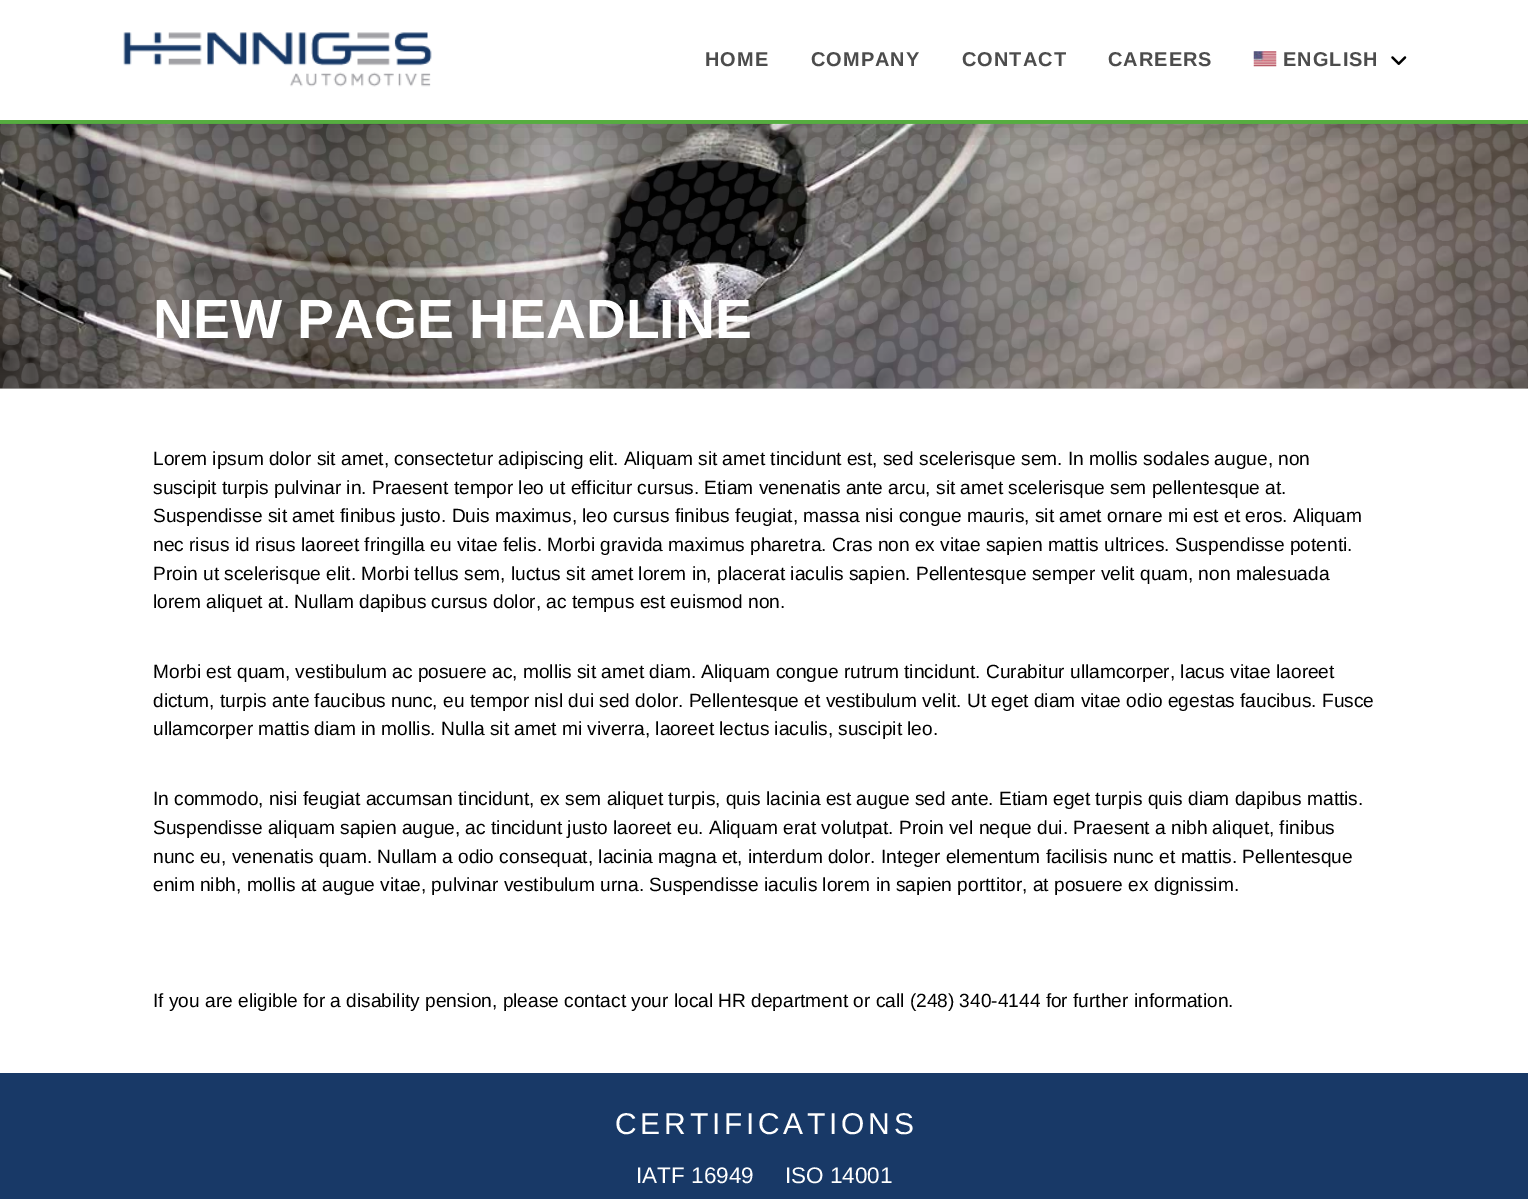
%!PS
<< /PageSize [1528 1199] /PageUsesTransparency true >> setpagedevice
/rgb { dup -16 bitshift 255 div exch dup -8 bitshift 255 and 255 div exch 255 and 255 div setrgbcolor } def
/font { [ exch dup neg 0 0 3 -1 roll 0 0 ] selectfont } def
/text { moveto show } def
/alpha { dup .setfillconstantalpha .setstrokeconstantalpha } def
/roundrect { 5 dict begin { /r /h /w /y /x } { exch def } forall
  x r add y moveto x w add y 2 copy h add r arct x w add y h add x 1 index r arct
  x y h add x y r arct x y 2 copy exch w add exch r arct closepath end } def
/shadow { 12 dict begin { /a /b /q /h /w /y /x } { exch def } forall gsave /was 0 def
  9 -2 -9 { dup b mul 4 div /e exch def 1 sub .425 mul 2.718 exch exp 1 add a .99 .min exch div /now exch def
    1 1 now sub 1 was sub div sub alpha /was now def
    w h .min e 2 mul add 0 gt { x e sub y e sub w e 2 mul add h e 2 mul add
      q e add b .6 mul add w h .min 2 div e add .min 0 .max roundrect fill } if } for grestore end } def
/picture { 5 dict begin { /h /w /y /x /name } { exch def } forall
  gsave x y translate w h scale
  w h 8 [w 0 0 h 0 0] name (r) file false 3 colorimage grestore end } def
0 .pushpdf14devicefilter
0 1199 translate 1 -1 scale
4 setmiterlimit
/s1 { /LiberationSans-Bold 55.25 font 16#FFFFFF rgb } def
/s2 { /LiberationSans-Regular 19.12 font 16#000000 rgb } def
/s3 { /LiberationSans-Regular 22.5 font 16#FFFFFF rgb } def
16#FFFFFF rgb
0 0 1528 1199 rectfill
16#5DBB46 rgb
0 120 1528 4 rectfill
(pic4.raw) 0 123 1528 266 picture
(pic5.raw) 0 124 1528 265 picture
gsave
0 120 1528 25 rectclip
16#000000 rgb
0 3 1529 120 0 20 0.15 shadow
grestore
(pic1.raw) 123 32 309 55 picture
/LiberationSans-Bold 20 font
16#4C4C4C rgb
705 66 moveto 1 0 (HOME) ashow
811 66 moveto 1 0 (COMPANY) ashow
962 66 moveto 1 0 (CONTACT) ashow
1108 66 moveto 1 0 (CAREERS) ashow
(pic2.raw) 1253 51 24 16 picture
1283 66 moveto 1 0 (ENGLISH) ashow
(pic3.raw) 1391 56 16 9 picture
s1
(NEW PAGE HEADLINE) 153 338 text
s2
(Lorem ipsum dolor sit amet, consectetur adipiscing elit. Aliquam sit amet tincidunt est, sed scelerisque sem. In mollis sodales augue, non) 153 465 text
(suscipit turpis pulvinar in. Praesent tempor leo ut efficitur cursus. Etiam venenatis ante arcu, sit amet scelerisque sem pellentesque at.) 153 494 text
(Suspendisse sit amet finibus justo. Duis maximus, leo cursus finibus feugiat, massa nisi congue mauris, sit amet ornare mi est et eros. Aliquam) 153 522 text
(nec risus id risus laoreet fringilla eu vitae felis. Morbi gravida maximus pharetra. Cras non ex vitae sapien mattis ultrices. Suspendisse potenti.) 153 551 text
(Proin ut scelerisque elit. Morbi tellus sem, luctus sit amet lorem in, placerat iaculis sapien. Pellentesque semper velit quam, non malesuada) 153 580 text
(lorem aliquet at. Nullam dapibus cursus dolor, ac tempus est euismod non.) 153 608 text
(Morbi est quam, vestibulum ac posuere ac, mollis sit amet diam. Aliquam congue rutrum tincidunt. Curabitur ullamcorper, lacus vitae laoreet) 153 678 text
(dictum, turpis ante faucibus nunc, eu tempor nisl dui sed dolor. Pellentesque et vestibulum velit. Ut eget diam vitae odio egestas faucibus. Fusce) 153 707 text
(ullamcorper mattis diam in mollis. Nulla sit amet mi viverra, laoreet lectus iaculis, suscipit leo.) 153 735 text
(In commodo, nisi feugiat accumsan tincidunt, ex sem aliquet turpis, quis lacinia est augue sed ante. Etiam eget turpis quis diam dapibus mattis.) 153 805 text
(Suspendisse aliquam sapien augue, ac tincidunt justo laoreet eu. Aliquam erat volutpat. Proin vel neque dui. Praesent a nibh aliquet, finibus) 153 834 text
(nunc eu, venenatis quam. Nullam a odio consequat, lacinia magna et, interdum dolor. Integer elementum facilisis nunc et mattis. Pellentesque) 153 863 text
(enim nibh, mollis at augue vitae, pulvinar vestibulum urna. Suspendisse iaculis lorem in sapien porttitor, at posuere ex dignissim.) 153 891 text
(If you are eligible for a disability pension, please contact your local HR department or call \(248\) 340-4144 for further information.) 153 1007 text
16#183967 rgb
0 1073 1528 126 rectfill
/LiberationSans-Regular 30 font
16#FFFFFF rgb
615 1134 moveto 3.75 0 (CERTIFICATIONS) ashow
s3
(IATF 16949     ISO 14001) 636 1183 text
.poppdf14devicefilter showpage
